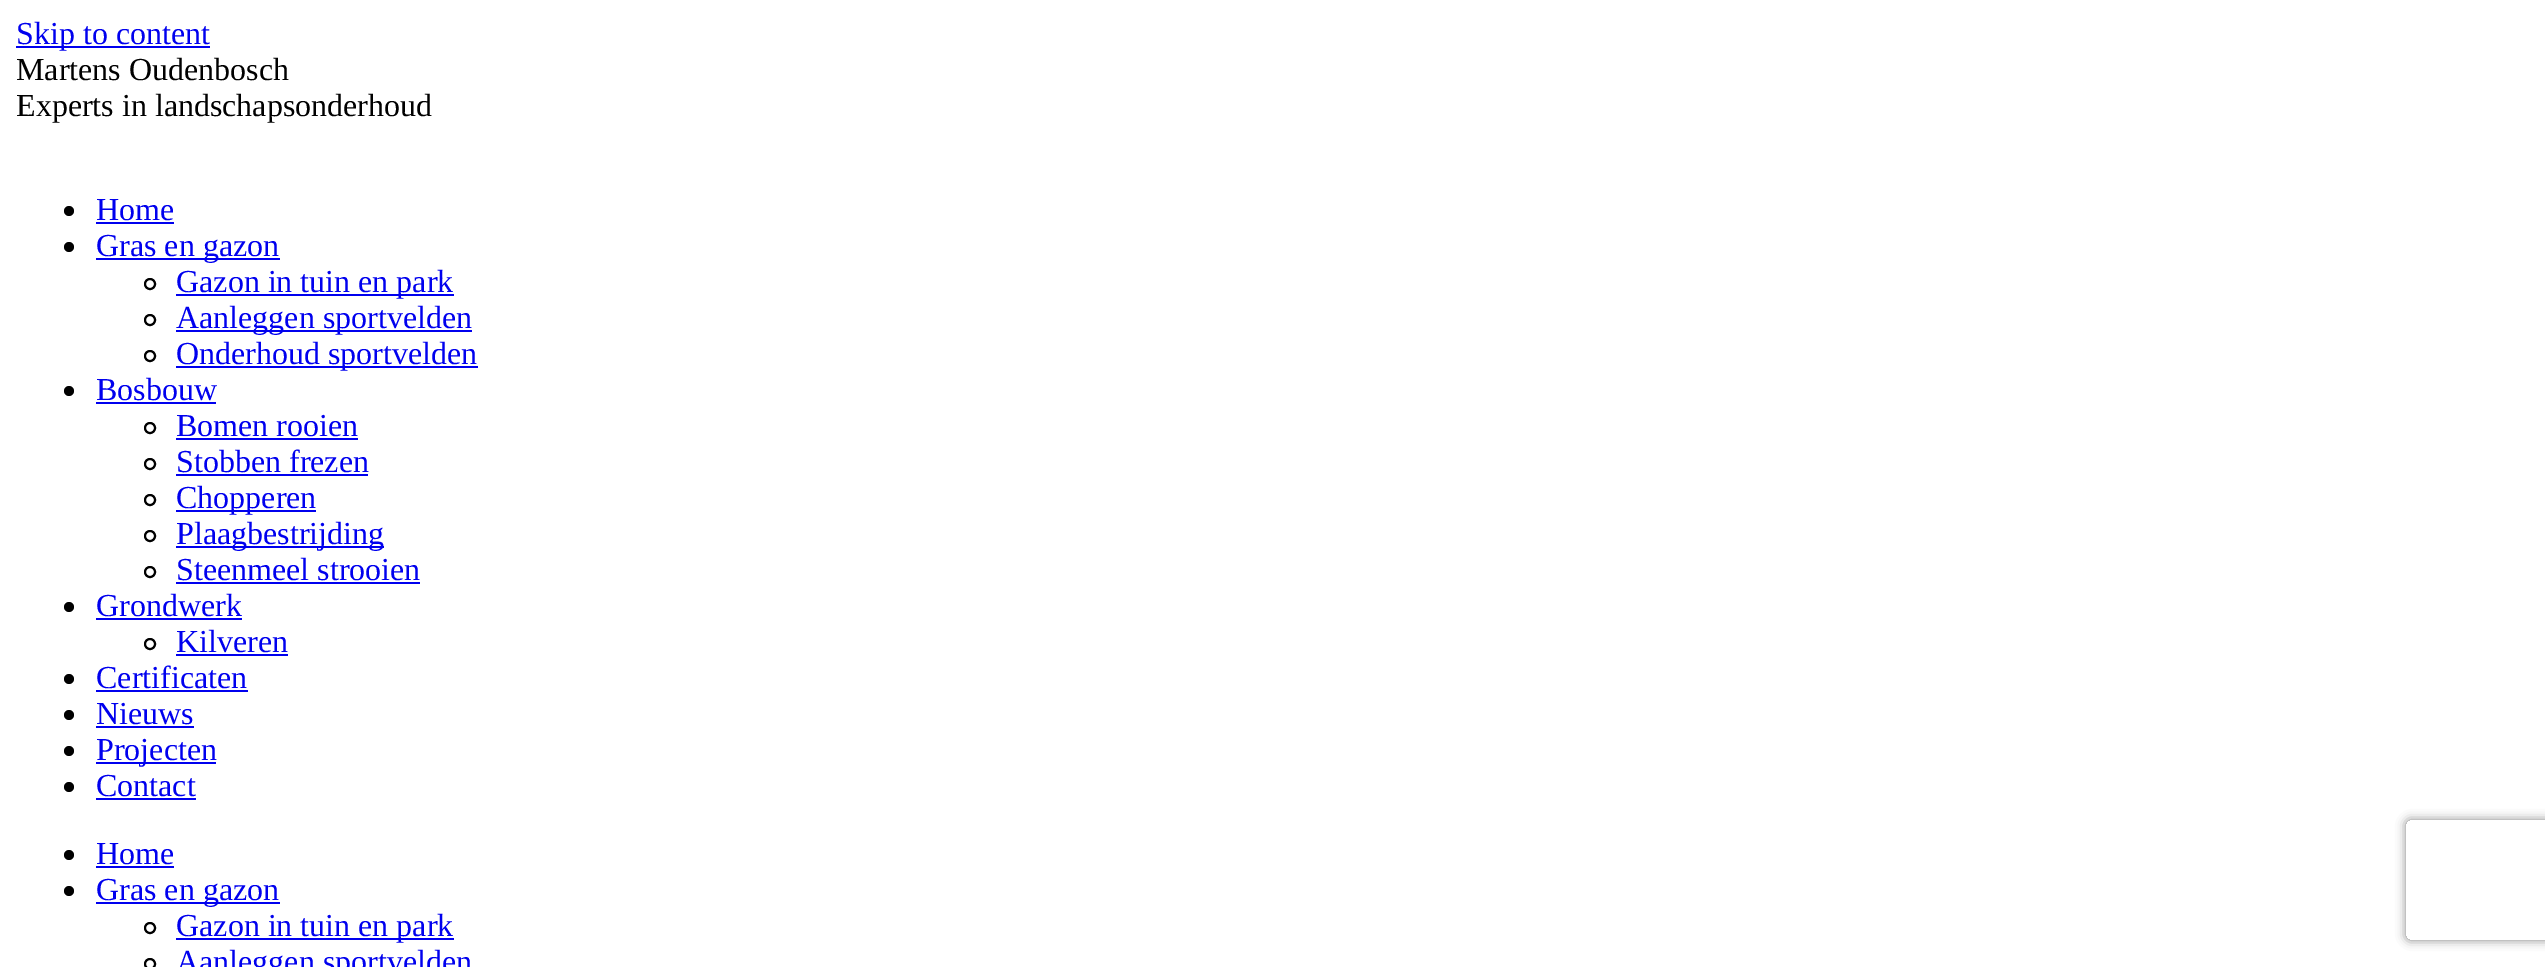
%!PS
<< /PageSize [2545 967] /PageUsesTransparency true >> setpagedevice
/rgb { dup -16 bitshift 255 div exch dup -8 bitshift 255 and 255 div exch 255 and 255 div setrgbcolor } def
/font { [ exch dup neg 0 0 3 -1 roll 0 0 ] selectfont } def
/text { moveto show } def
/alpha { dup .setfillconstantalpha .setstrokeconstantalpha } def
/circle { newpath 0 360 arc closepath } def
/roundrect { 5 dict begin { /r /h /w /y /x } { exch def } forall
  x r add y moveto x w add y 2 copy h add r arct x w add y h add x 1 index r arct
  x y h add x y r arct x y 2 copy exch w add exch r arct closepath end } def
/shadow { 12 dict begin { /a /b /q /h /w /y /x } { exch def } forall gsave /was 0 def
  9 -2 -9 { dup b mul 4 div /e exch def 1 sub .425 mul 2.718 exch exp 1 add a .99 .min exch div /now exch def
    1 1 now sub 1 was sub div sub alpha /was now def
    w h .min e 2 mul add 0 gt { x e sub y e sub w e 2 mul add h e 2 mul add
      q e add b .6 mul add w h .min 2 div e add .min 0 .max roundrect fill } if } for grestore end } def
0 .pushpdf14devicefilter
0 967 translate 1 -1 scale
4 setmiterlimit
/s1 { /LiberationSerif-Regular 32 font 16#0000EE rgb } def
/s2 { /LiberationSerif-Regular 32 font 16#000000 rgb } def
16#FFFFFF rgb
0 0 2545 967 rectfill
16#0000EE rgb
16 46 194 2 rectfill
s1
(Skip to content) 16 44 text
s2
(Martens Oudenbosch) 16 80 text
(Experts in landschapsonderhoud) 16 116 text
69 211 5 circle fill
s1
(Home) 96 220 text
96 222 78 2 rectfill
16#000000 rgb
69 247 5 circle fill
16#0000EE rgb
96 258 184 2 rectfill
(Gras en gazon) 96 256 text
16#000000 rgb
2 setlinewidth
150 284 5 circle stroke
16#0000EE rgb
176 294 278 2 rectfill
(Gazon in tuin en park) 176 292 text
16#000000 rgb
150 320 5 circle stroke
16#0000EE rgb
176 330 296 2 rectfill
(Aanleggen sportvelden) 176 328 text
16#000000 rgb
150 356 5 circle stroke
16#0000EE rgb
176 366 302 2 rectfill
(Onderhoud sportvelden) 176 364 text
16#000000 rgb
69 391 5 circle fill
s1
(Bosbouw) 96 400 text
96 402 120 2 rectfill
16#000000 rgb
150 428 5 circle stroke
s1
(Bomen rooien) 176 436 text
176 438 182 2 rectfill
16#000000 rgb
150 464 5 circle stroke
s1
(Stobben frezen) 176 472 text
176 474 192 2 rectfill
16#000000 rgb
150 500 5 circle stroke
16#0000EE rgb
176 510 140 2 rectfill
(Chopperen) 176 508 text
16#000000 rgb
150 536 5 circle stroke
16#0000EE rgb
176 546 208 2 rectfill
(Plaagbestrijding) 176 544 text
16#000000 rgb
150 572 5 circle stroke
s1
(Steenmeel strooien) 176 580 text
176 582 244 2 rectfill
16#000000 rgb
69 607 5 circle fill
s1
(Grondwerk) 96 616 text
96 618 146 2 rectfill
16#000000 rgb
150 644 5 circle stroke
s1
(Kilveren) 176 652 text
176 654 112 2 rectfill
16#000000 rgb
69 679 5 circle fill
s1
(Certificaten) 96 688 text
96 690 152 2 rectfill
16#000000 rgb
69 715 5 circle fill
s1
(Nieuws) 96 724 text
96 726 98 2 rectfill
16#000000 rgb
69 751 5 circle fill
16#0000EE rgb
96 762 120 2 rectfill
(Projecten) 96 760 text
16#000000 rgb
69 787 5 circle fill
s1
(Contact) 96 796 text
96 798 100 2 rectfill
16#000000 rgb
69 855 5 circle fill
s1
(Home) 96 864 text
96 866 78 2 rectfill
16#000000 rgb
69 891 5 circle fill
16#0000EE rgb
96 902 184 2 rectfill
(Gras en gazon) 96 900 text
16#000000 rgb
150 928 5 circle stroke
16#0000EE rgb
176 938 278 2 rectfill
(Gazon in tuin en park) 176 936 text
16#000000 rgb
150 964 5 circle stroke
s1
(Aanleggen sportvelden) 176 972 text
gsave
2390 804 moveto 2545 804 lineto 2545 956 lineto 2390 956 lineto closepath 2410 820 moveto 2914 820 lineto 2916 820 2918 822 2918 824 curveto 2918 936 lineto 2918 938 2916 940 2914 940 curveto 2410 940 lineto 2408 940 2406 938 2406 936 curveto 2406 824 lineto 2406 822 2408 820 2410 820 curveto closepath eoclip newpath
16#808080 rgb
2406 820 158 120 4 5 1 shadow
grestore
.poppdf14devicefilter showpage
